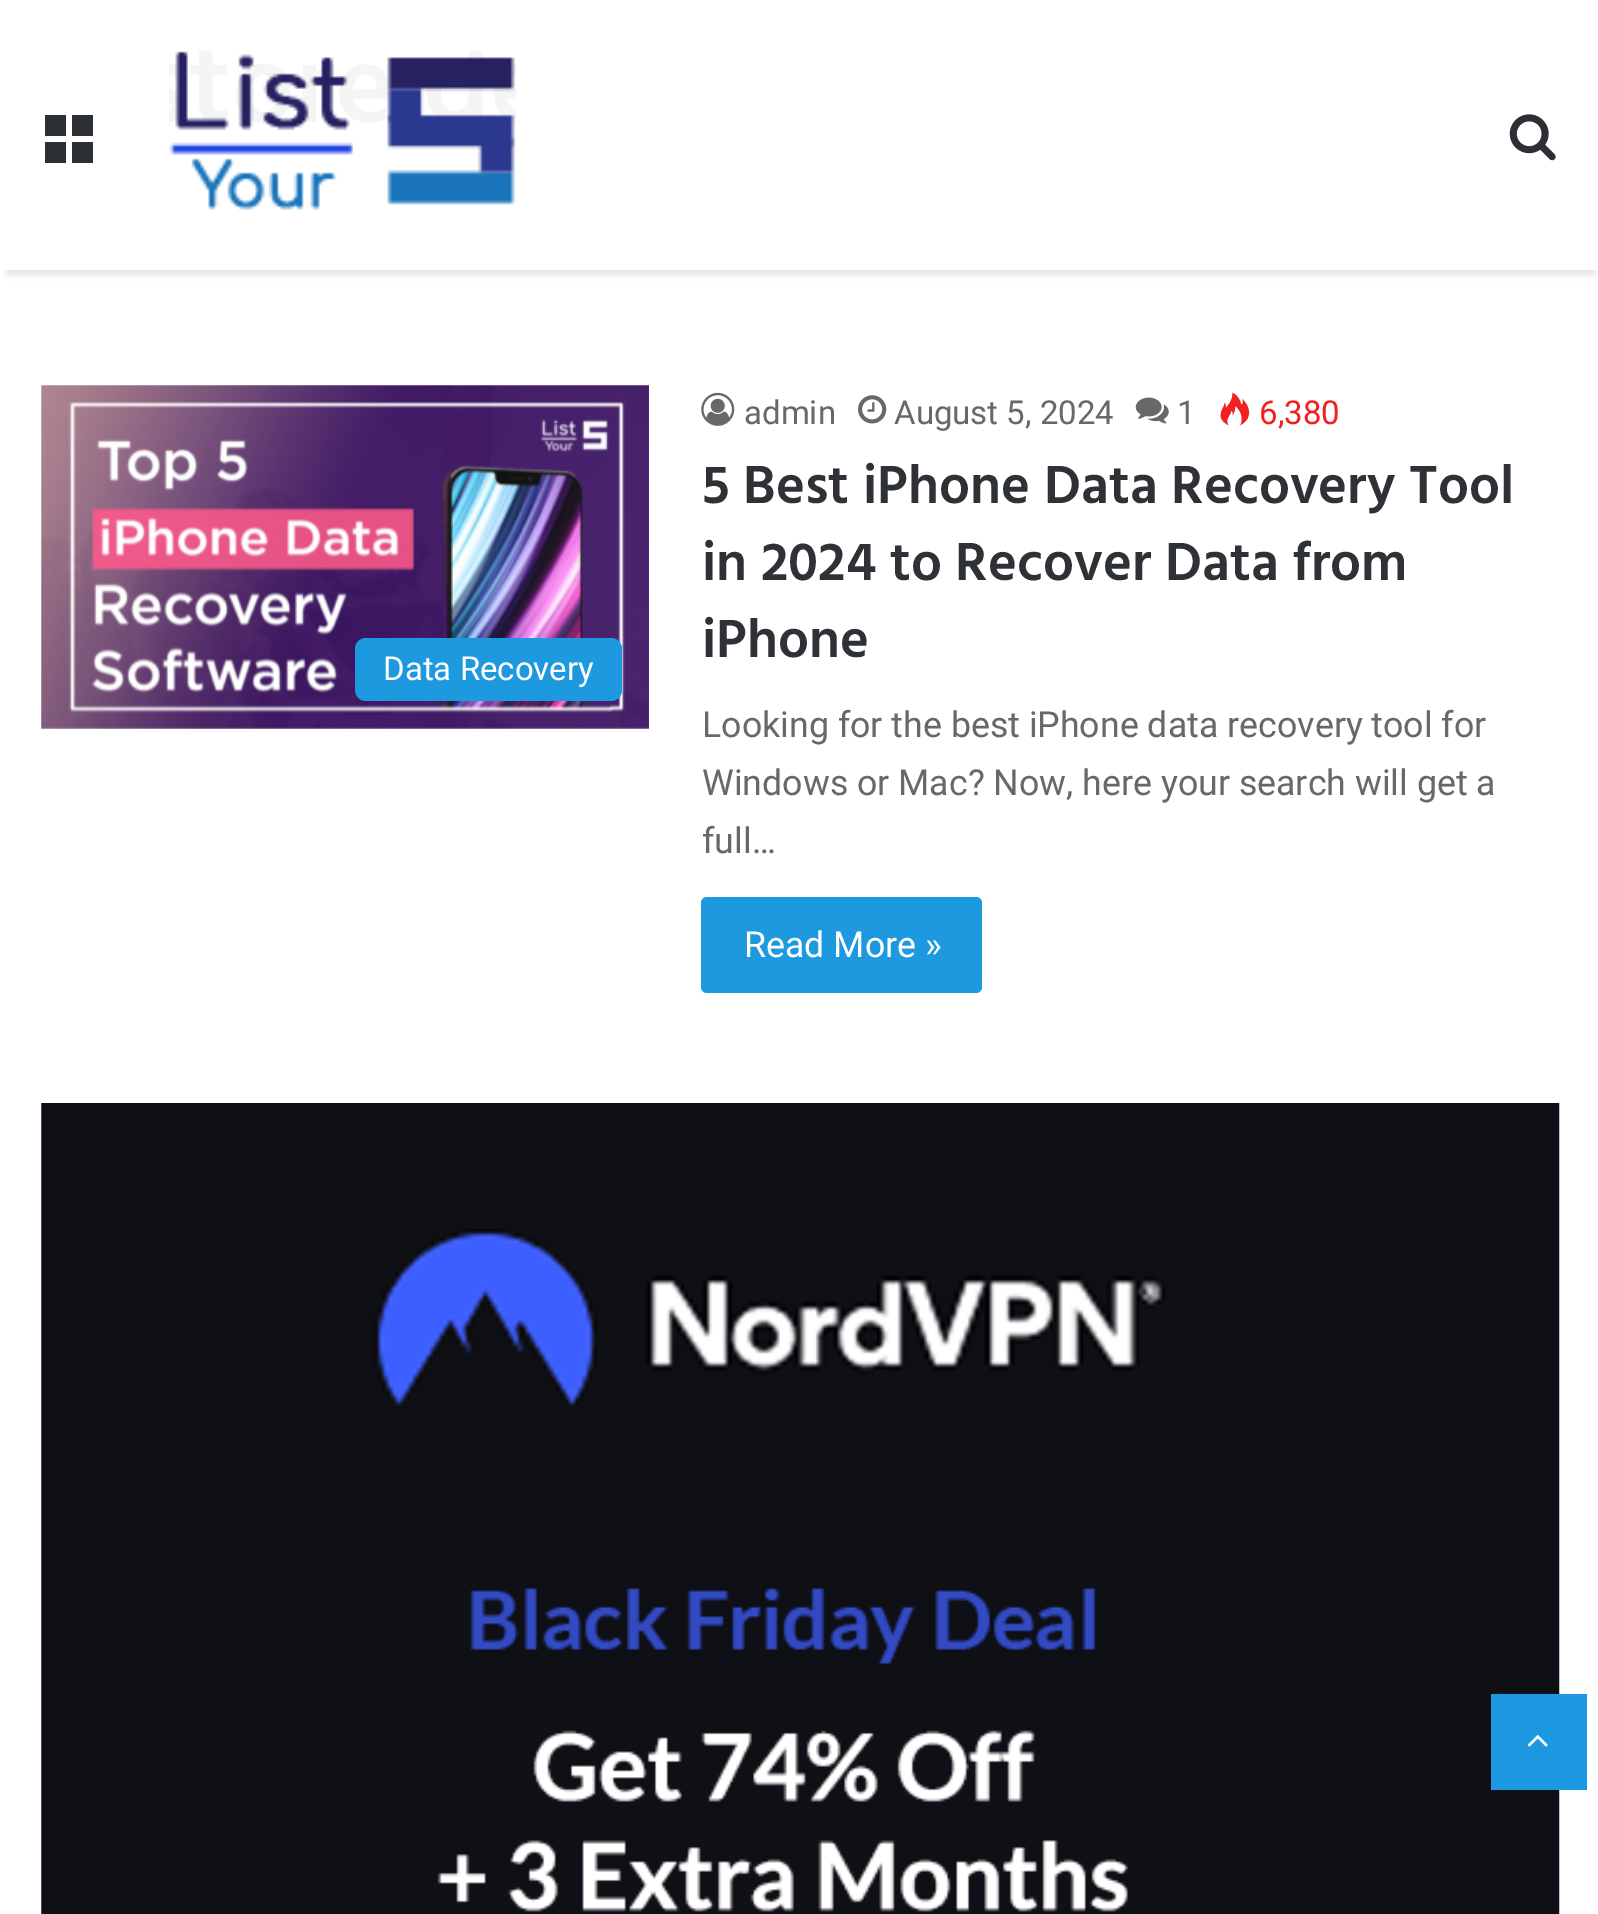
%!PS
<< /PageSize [1598 1914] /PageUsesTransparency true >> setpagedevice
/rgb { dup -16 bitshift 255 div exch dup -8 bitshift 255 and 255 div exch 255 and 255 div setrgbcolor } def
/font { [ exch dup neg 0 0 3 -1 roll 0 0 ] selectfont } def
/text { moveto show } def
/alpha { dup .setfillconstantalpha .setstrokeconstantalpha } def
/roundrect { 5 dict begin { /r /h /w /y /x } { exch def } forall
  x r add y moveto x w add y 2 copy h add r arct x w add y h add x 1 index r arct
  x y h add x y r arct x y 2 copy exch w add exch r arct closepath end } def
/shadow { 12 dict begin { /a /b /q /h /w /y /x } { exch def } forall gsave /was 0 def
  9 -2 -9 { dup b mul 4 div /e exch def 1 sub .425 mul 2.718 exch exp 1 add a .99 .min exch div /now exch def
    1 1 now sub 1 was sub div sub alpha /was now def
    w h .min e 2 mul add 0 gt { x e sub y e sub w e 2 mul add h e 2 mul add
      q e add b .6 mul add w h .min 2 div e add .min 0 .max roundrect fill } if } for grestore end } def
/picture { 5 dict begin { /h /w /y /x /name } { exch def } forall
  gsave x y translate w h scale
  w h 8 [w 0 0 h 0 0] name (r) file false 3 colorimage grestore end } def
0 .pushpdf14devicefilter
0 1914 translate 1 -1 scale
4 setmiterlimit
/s1 { /Roboto-Regular 33 font 16#FFFFFF rgb } def
/s2 { /Roboto-Regular 33 font 16#686868 rgb } def
/s3 { /Roboto-Regular 33 font 16#F12020 rgb } def
/s4 { /Hind-SemiBold 55 font 16#2E3136 rgb } def
/s5 { /Roboto-Regular 35.75 font 16#686868 rgb } def
/s6 { /Roboto-Regular 35.75 font 16#FFFFFF rgb } def
16#FFFFFF rgb
0 0 1598 1914 rectfill
gsave
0 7 moveto 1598 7 lineto 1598 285 lineto 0 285 lineto closepath 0 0 moveto 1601 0 lineto 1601 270 lineto 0 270 lineto closepath eoclip newpath
16#000000 rgb
6 17 1589 258 0 3 0.1 shadow
grestore
0.95 alpha
4 269 1593 1 rectfill
1 alpha
16#2C2F34 rgb
45 136 moveto 66 136 lineto 66 115 lineto 45 115 lineto closepath 72 115 moveto 72 136 lineto 93 136 lineto 93 115 lineto closepath 72 163 moveto 93 163 lineto 93 142 lineto 72 142 lineto closepath 45 163 moveto 66 163 lineto 66 142 lineto 45 142 lineto closepath fill
(pic1.raw) 169 51 347 159 picture
(pic2.raw) 1509 114 47 47 picture
(pic3.raw) 41 385 608 344 picture
16#1D99E0 rgb
355 638 267 63 11 roundrect fill
s1
(Data Recovery) 383 680 text
(pic4.raw) 701 392 34 34 picture
s2
(admin) 744 424 text
(pic5.raw) 858 395 29 29 picture
(August 5, 2024) 894 424 text
(pic6.raw) 1135 397 34 27 picture
(1) 1177 424 text
(pic7.raw) 1220 392 30 34 picture
s3
(6,380) 1259 424 text
s4
(5 Best iPhone Data Recovery Tool) 702 503 text
(in 2024 to Recover Data from) 702 580 text
(iPhone) 702 657 text
s5
(Looking for the best iPhone data recovery tool for) 702 737 text
(Windows or Mac? Now, here your search will get a) 702 795 text
(full…) 702 853 text
16#1D99E0 rgb
701 897 281 96 6 roundrect fill
s6
(Read More ») 744 957 text
(pic8.raw) 41 1103 1519 811 picture
16#1B98E0 rgb
1491 1694 96 96 rectfill
(pic9.raw) 1527 1735 21 12 picture
.poppdf14devicefilter showpage
